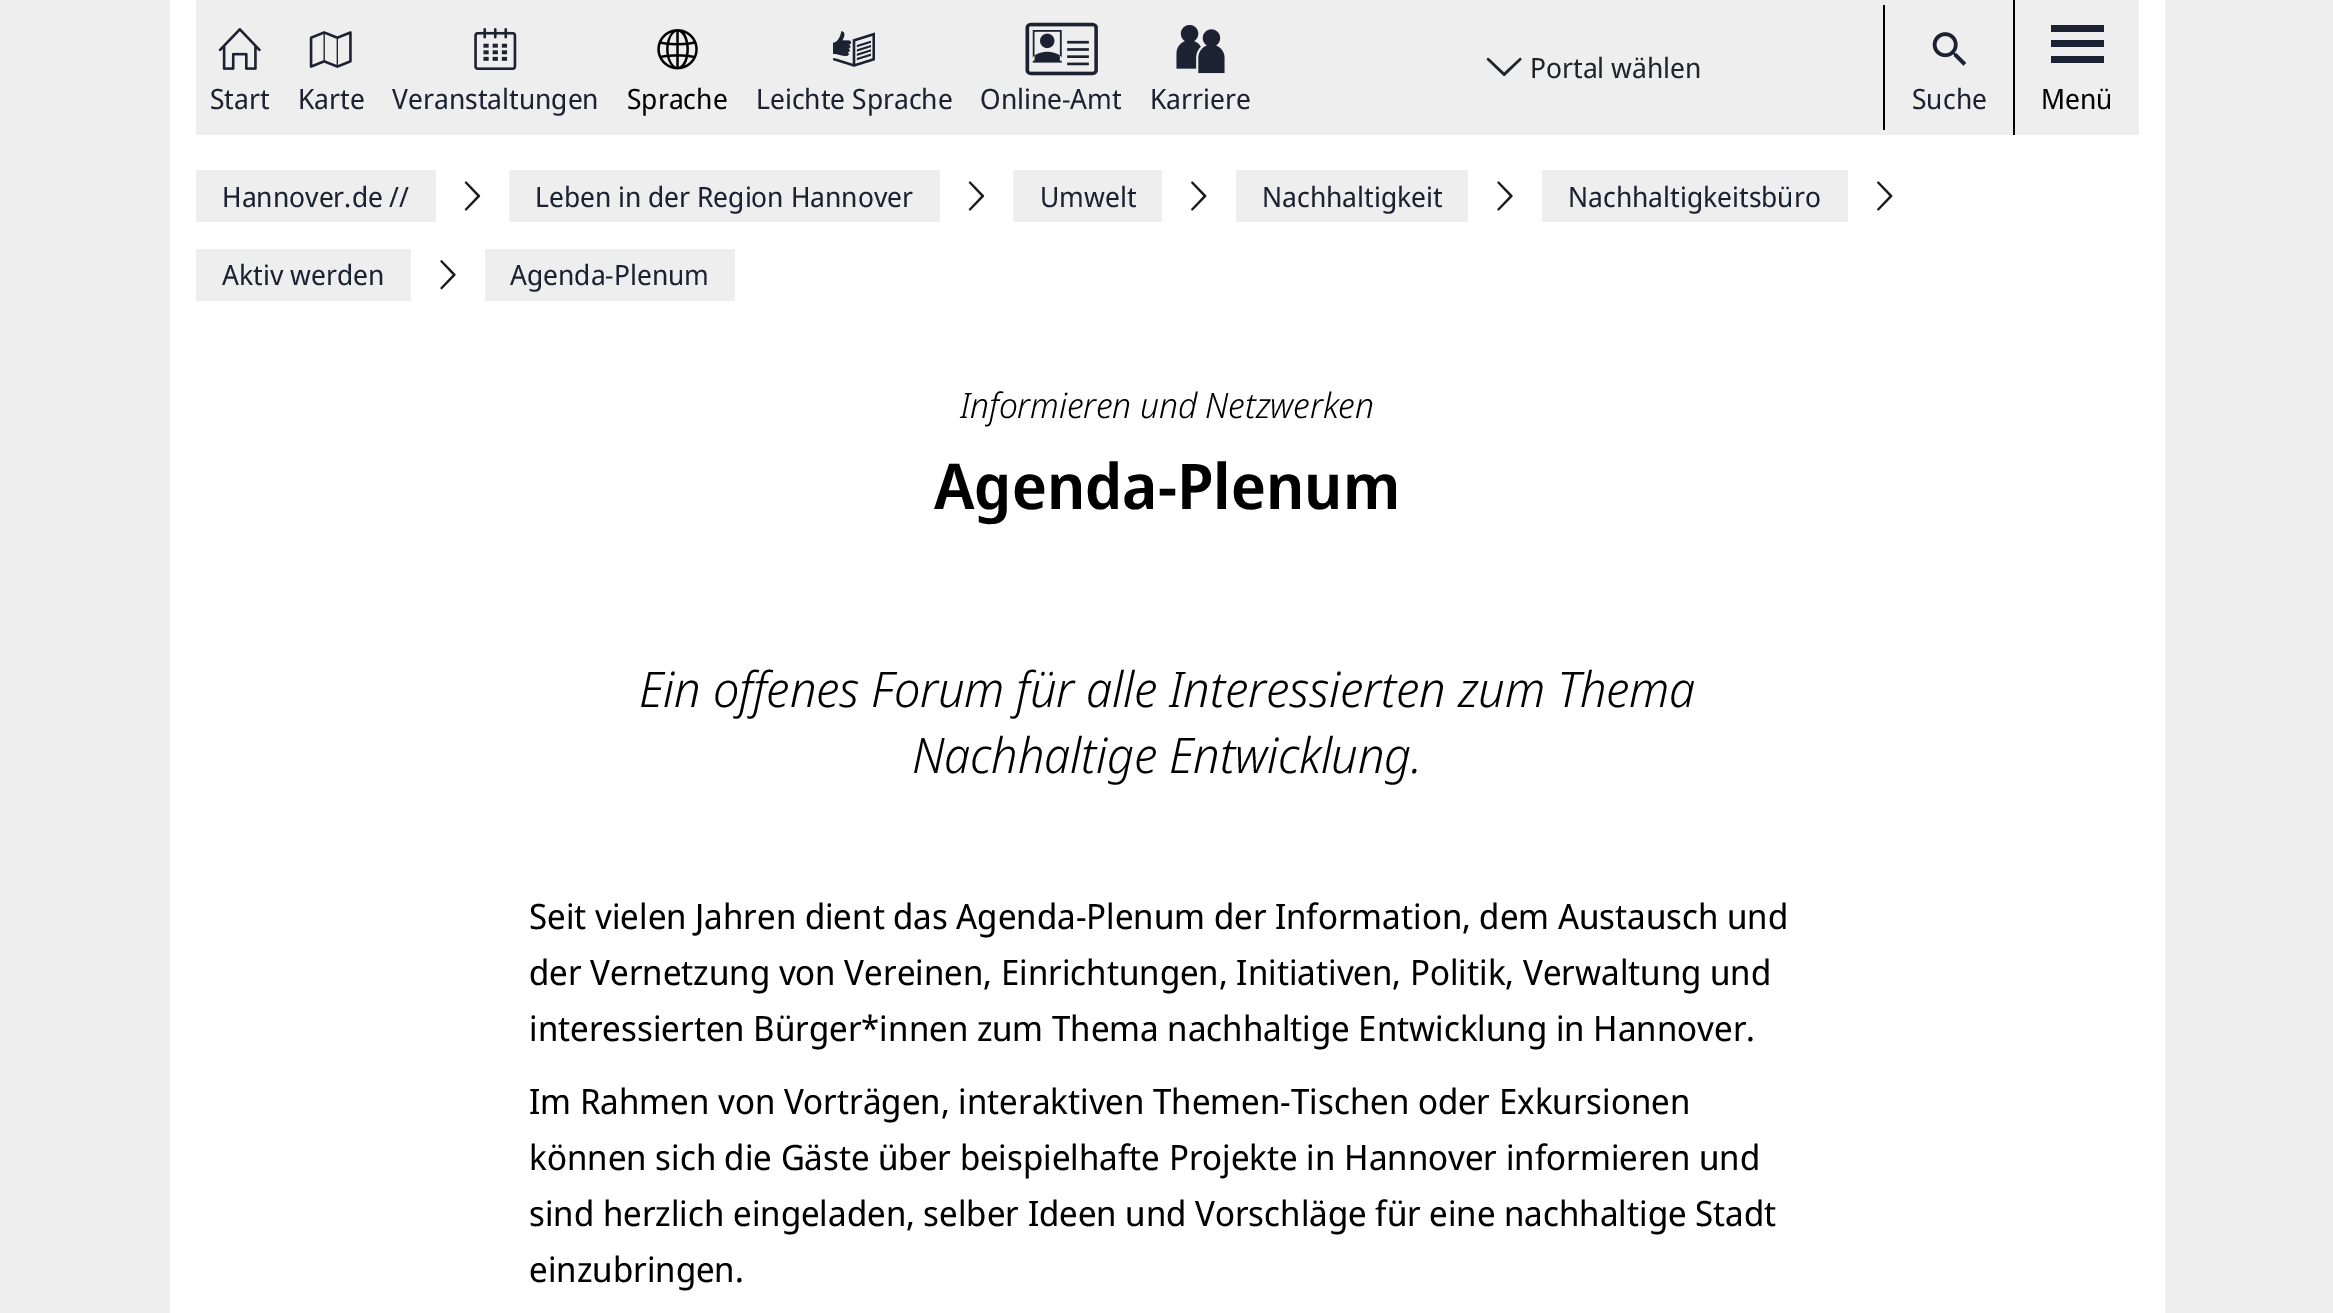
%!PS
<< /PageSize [2333 1313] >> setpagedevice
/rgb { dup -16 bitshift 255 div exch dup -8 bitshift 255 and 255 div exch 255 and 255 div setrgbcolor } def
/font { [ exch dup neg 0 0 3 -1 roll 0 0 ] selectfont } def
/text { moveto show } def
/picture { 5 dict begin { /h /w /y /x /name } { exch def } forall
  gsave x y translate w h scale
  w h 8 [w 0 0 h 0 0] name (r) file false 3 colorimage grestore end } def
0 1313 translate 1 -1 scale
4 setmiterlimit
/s1 { /NotoSansDisplay-Regular 28 font 16#212529 rgb } def
/s2 { /NotoSansDisplay-Regular 28 font 16#1C2231 rgb } def
/s3 { /NotoSansDisplay-Regular 28 font 16#000000 rgb } def
/s4 { /NotoSansDisplay-LightItalic 35 font 16#000000 rgb } def
/s5 { /NotoSansDisplay-SemiBold 63 font 16#000000 rgb } def
/s6 { /NotoSansDisplay-LightItalic 49 font 16#000000 rgb } def
/s7 { /NotoSansDisplay-Regular 35 font 16#000000 rgb } def
16#EEEEEE rgb
0 0 2333 1313 rectfill
16#FFFFFF rgb
170 0 1995 1313 rectfill
16#EEEEEE rgb
196 0 1943 135 rectfill
(pic1.raw) 1486 57 36 20 picture
s1
(Portal wählen) 1530 78 text
(pic2.raw) 218 28 43 42 picture
s2
(Start) 210 109 text
(pic3.raw) 309 31 43 37 picture
(Karte) 298 109 text
(pic4.raw) 474 28 43 42 picture
(Veranstaltungen) 392 109 text
(pic5.raw) 657 29 41 41 picture
s3
(Sprache) 627 109 text
(pic6.raw) 833 31 42 36 picture
s2
(Leichte Sprache) 756 109 text
(pic7.raw) 1025 22 73 54 picture
(Online-Amt) 980 109 text
(pic8.raw) 1176 25 49 49 picture
(Karriere) 1150 109 text
16#000000 rgb
1883 5 2 125 rectfill
(pic9.raw) 1932 32 35 34 picture
s2
(Suche) 1912 109 text
16#000000 rgb
2013 0 2 135 rectfill
16#1C2231 rgb
2051 25 53 7 rectfill
2051 40 53 7 rectfill
2051 56 53 7 rectfill
s3
(Menü) 2041 109 text
16#EEEEEE rgb
196 170 240 52 rectfill
s2
(Hannover.de //) 222 207 text
(pic10.raw) 464 181 17 30 picture
16#EEEEEE rgb
509 170 431 52 rectfill
s2
(Leben in der Region Hannover) 535 207 text
(pic10.raw) 968 181 17 30 picture
16#EEEEEE rgb
1013 170 149 52 rectfill
s2
(Umwelt) 1040 207 text
(pic11.raw) 1191 181 16 30 picture
16#EEEEEE rgb
1236 170 232 52 rectfill
s2
(Nachhaltigkeit) 1262 207 text
(pic12.raw) 1497 181 16 30 picture
16#EEEEEE rgb
1542 170 306 52 rectfill
s2
(Nachhaltigkeitsbüro) 1568 207 text
(pic11.raw) 1877 181 16 30 picture
16#EEEEEE rgb
196 249 215 52 rectfill
s2
(Aktiv werden) 222 285 text
(pic13.raw) 440 260 16 30 picture
16#EEEEEE rgb
485 249 250 52 rectfill
s2
(Agenda-Plenum) 510 285 text
s4
(Informieren und Netzwerken) 960 418 text
s5
(Agenda-Plenum) 934 509 text
s6
(Ein offenes Forum für alle Interessierten zum Thema) 639 707 text
(Nachhaltige Entwicklung.) 912 773 text
s7
(Seit vielen Jahren dient das Agenda-Plenum der Information, dem Austausch und) 529 929 text
(der Vernetzung von Vereinen, Einrichtungen, Initiativen, Politik, Verwaltung und) 529 985 text
(interessierten Bürger*innen zum Thema nachhaltige Entwicklung in Hannover.) 529 1041 text
(Im Rahmen von Vorträgen, interaktiven Themen-Tischen oder Exkursionen) 529 1114 text
(können sich die Gäste über beispielhafte Projekte in Hannover informieren und) 529 1170 text
(sind herzlich eingeladen, selber Ideen und Vorschläge für eine nachhaltige Stadt) 529 1226 text
(einzubringen.) 529 1282 text
showpage
